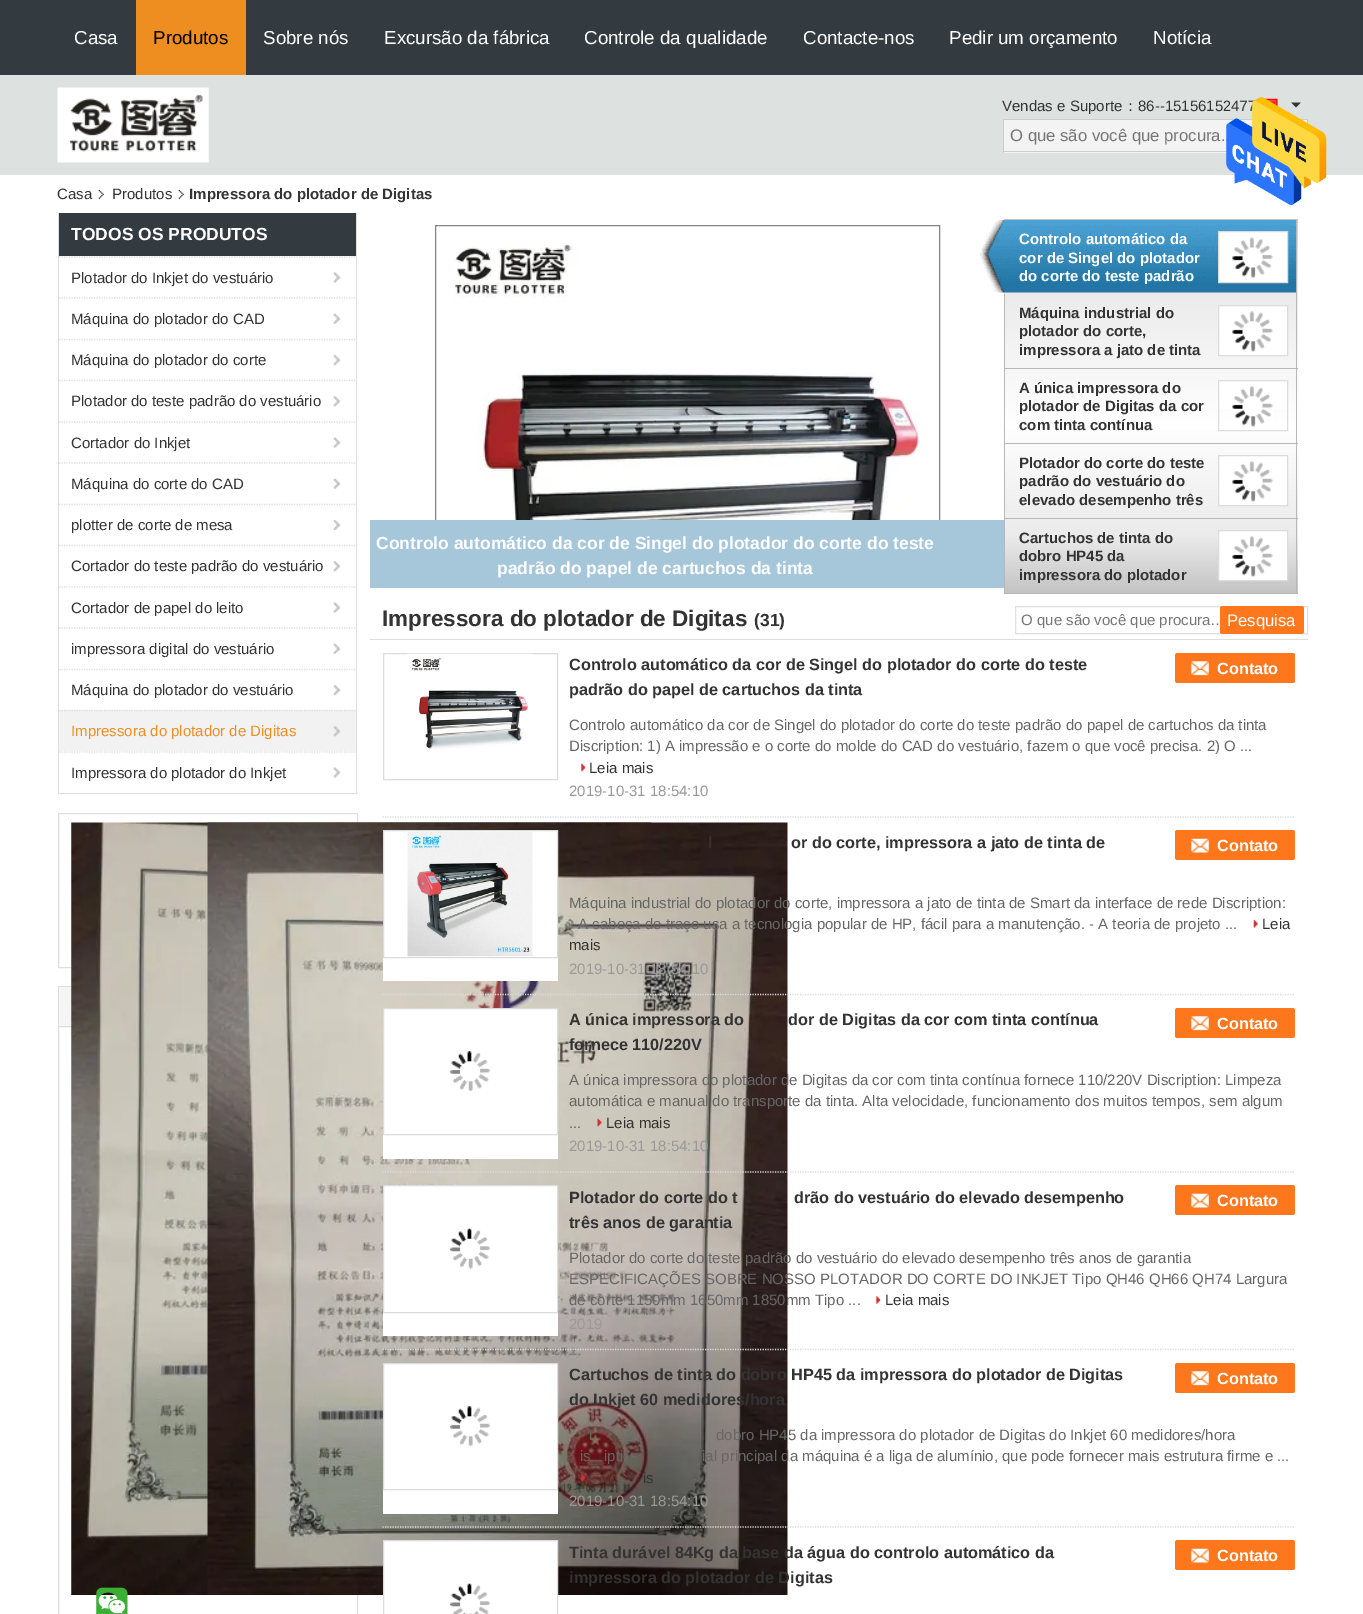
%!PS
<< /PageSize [1363 1614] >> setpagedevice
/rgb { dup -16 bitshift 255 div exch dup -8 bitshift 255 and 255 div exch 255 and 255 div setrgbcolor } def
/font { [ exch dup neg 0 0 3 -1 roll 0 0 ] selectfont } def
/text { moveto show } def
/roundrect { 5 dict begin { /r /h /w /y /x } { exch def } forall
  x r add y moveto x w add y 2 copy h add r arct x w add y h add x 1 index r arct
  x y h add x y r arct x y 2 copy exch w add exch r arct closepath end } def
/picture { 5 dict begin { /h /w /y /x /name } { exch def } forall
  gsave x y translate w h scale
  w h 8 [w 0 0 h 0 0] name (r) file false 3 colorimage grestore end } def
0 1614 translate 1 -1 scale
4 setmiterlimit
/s1 { /LiberationSans-Regular 18.75 font 16#FFFFFF rgb } def
/s2 { /LiberationSans-Regular 18.75 font 16#000000 rgb } def
/s3 { /LiberationSans-Regular 15 font 16#333333 rgb } def
/s4 { /WenQuanYiZenHei-Medium 15 font 16#333333 rgb } def
/s5 { /LiberationSans-Regular 16.7 font 16#757575 rgb } def
/s6 { /LiberationSans-Bold 15 font 16#333333 rgb } def
/s7 { /LiberationSans-Bold 17.5 font 16#FFFFFF rgb } def
/s8 { /LiberationSans-Regular 15 font 16#EE8E21 rgb } def
/s9 { /LiberationSans-Bold 22.5 font 16#333333 rgb } def
/s10 { /LiberationSans-Regular 15 font 16#666666 rgb } def
/s11 { /LiberationSans-Bold 15 font 16#FFFFFF rgb } def
/s12 { /LiberationSans-Bold 17.5 font 16#333333 rgb } def
/s13 { /LiberationSans-Regular 15 font 16#757575 rgb } def
/s14 { /LiberationSans-Regular 16.7 font 16#FFFFFF rgb } def
/s15 { /LiberationSans-Bold 16.25 font 16#333333 rgb } def
/s16 { /LiberationSans-Bold 16.25 font 16#FFFFFF rgb } def
/s17 { /LiberationSans-Regular 15 font 16#999999 rgb } def
16#FFFFFF rgb
0 0 1363 1614 rectfill
16#333B41 rgb
0 0 1363 75 rectfill
s1
(Casa) 74 44 text
16#EE8E21 rgb
136 0 110 75 rectfill
s2
(Produtos) 153 44 text
s1
(Sobre nós) 263 44 text
(Excursão da fábrica) 384 44 text
(Controle da qualidade) 584 44 text
(Contacte-nos) 803 44 text
(Pedir um orçamento) 949 44 text
(Notícia) 1153 44 text
16#DDE1DF rgb
0 75 1363 100 rectfill
(pic1.raw) 57 87 152 76 picture
s3
(Vendas e Suporte) 1002 111 text
s4
(：) 1123 111 text
s3
(86--15156152477) 1138 111 text
(pic2.raw) 1257 98 21 8 picture
1291 102.5 moveto 1301 102.5 lineto 1296 107.5 lineto closepath fill
16#F3F3F3 rgb
1004 120 249 33 rectfill
16#CCCCCC rgb
1003 119 250 1 rectfill
1003 151 224 1 rectfill
1003 119 1 34 rectfill
s5
(O que são você que procura.) 1010 141 text
16#F3F3F3 rgb
1301 120 6 3 rectfill
16#CCCCCC rgb
1266.5 119.5 41 33 rectstroke
(pic3.raw) 1226 97 101 109 picture
s3
(Casa) 57 199 text
(pic4.raw) 98 189 6 10 picture
(Produtos) 112 199 text
(pic4.raw) 178 189 6 10 picture
s6
(Impressora do plotador de Digitas) 189 199 text
16#DEDEDE rgb
356 213 1 581 rectfill
58 793 300 1 rectfill
58 213 1 581 rectfill
16#333B41 rgb
59 213 297 43 rectfill
s7
(TODOS OS PRODUTOS) 71 240 text
16#DEDEDE rgb
1.2 setlinewidth
[1.25 1.25] 0 setdash
59 257 moveto 356 257 lineto stroke
s3
(Plotador do Inkjet do vestuário) 71 283 text
(pic5.raw) 333 272 8 11 picture
16#DEDEDE rgb
59 298 moveto 356 298 lineto stroke
s3
(Máquina do plotador do CAD) 71 324 text
(pic6.raw) 333 313 8 11 picture
16#DEDEDE rgb
59 339.5 moveto 356 339.5 lineto stroke
s3
(Máquina do plotador do corte) 71 365 text
(pic7.raw) 333 355 8 11 picture
16#DEDEDE rgb
59 380.5 moveto 356 380.5 lineto stroke
s3
(Plotador do teste padrão do vestuário) 71 406 text
(pic8.raw) 333 396 8 11 picture
16#DEDEDE rgb
59 422 moveto 356 422 lineto stroke
s3
(Cortador do Inkjet) 71 448 text
(pic5.raw) 333 437 8 11 picture
16#DEDEDE rgb
59 463 moveto 356 463 lineto stroke
s3
(Máquina do corte do CAD) 71 489 text
(pic6.raw) 333 478 8 11 picture
16#DEDEDE rgb
59 504.5 moveto 356 504.5 lineto stroke
s3
(plotter de corte de mesa) 71 530 text
(pic7.raw) 333 520 8 11 picture
16#DEDEDE rgb
59 545.5 moveto 356 545.5 lineto stroke
s3
(Cortador do teste padrão do vestuário) 71 571 text
(pic8.raw) 333 561 8 11 picture
16#DEDEDE rgb
59 587 moveto 356 587 lineto stroke
s3
(Cortador de papel do leito) 71 613 text
(pic5.raw) 333 602 8 11 picture
16#DEDEDE rgb
59 628 moveto 356 628 lineto stroke
s3
(impressora digital do vestuário) 71 654 text
(pic6.raw) 333 643 8 11 picture
16#DEDEDE rgb
59 669.5 moveto 356 669.5 lineto stroke
s3
(Máquina do plotador do vestuário) 71 695 text
(pic7.raw) 333 685 8 11 picture
16#F2F2F2 rgb
59 710 297 41 rectfill
16#DEDEDE rgb
59 710.5 moveto 356 710.5 lineto stroke
s8
(Impressora do plotador de Digitas) 71 736 text
(pic9.raw) 333 726 8 11 picture
16#DEDEDE rgb
59 752 moveto 356 752 lineto stroke
s3
(Impressora do plotador do Inkjet) 71 778 text
(pic5.raw) 333 767 8 11 picture
16#DEDEDE rgb
1 setlinewidth
[] 0 setdash
58.5 813.5 299 154 rectstroke
58.5 986.5 299 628 rectstroke
16#F5F5F5 rgb
59 988 13 40 rectfill
16#DEDEDE rgb
59 1026 13 1 rectfill
(pic10.raw) 71 822 581 773 picture
(pic11.raw) 207 822 581 773 picture
(pic12.raw) 96 1587 32 27 picture
370 639 938 1 rectfill
s9
(Impressora do plotador de Digitas) 382 626 text
s10
(Controlo automático da cor de Singel do plotador do corte do teste padrão do papel de cartuchos da tinta) 569 730 text
gsave
370 221 635 299 rectclip
16#848282 rgb
435.5 225.5 504 504 rectstroke
grestore
(pic13.raw) 454 244 465 276 picture
16#A6C7D9 rgb
370 520 634 68 rectfill
s7
(Controlo automático da cor de Singel do plotador do corte do teste) 376 549 text
(padrão do papel de cartuchos da tinta) 497 574 text
gsave 1004 219 moveto 1298 219 lineto 1298 220 lineto 1004 220 lineto closepath clip newpath
<< /ShadingType 2 /ColorSpace /DeviceRGB /Coords [1151 -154 1151 220] /Extend [true true] /Function << /FunctionType 3 /Domain [0 1] /Functions [<< /FunctionType 2 /Domain [0 1] /C0 [0.816 0.816 0.816] /C1 [0.91 0.91 0.91] /N 1 >> << /FunctionType 2 /Domain [0 1] /C0 [0.91 0.91 0.91] /C1 [1 1 1] /N 1 >> << /FunctionType 2 /Domain [0 1] /C0 [1 1 1] /C1 [0.918 0.918 0.918] /N 1 >> << /FunctionType 2 /Domain [0 1] /C0 [0.918 0.918 0.918] /C1 [0.761 0.761 0.761] /N 1 >>] /Bounds [0.15 0.55 0.85] /Encode [0 1 0 1 0 1 0 1] >> >> shfill grestore
gsave 1004 220 moveto 1298 220 lineto 1298 593 lineto 1004 593 lineto closepath clip newpath
<< /ShadingType 2 /ColorSpace /DeviceRGB /Coords [1151 220 1151 594] /Extend [true true] /Function << /FunctionType 3 /Domain [0 1] /Functions [<< /FunctionType 2 /Domain [0 1] /C0 [0.816 0.816 0.816] /C1 [0.91 0.91 0.91] /N 1 >> << /FunctionType 2 /Domain [0 1] /C0 [0.91 0.91 0.91] /C1 [1 1 1] /N 1 >> << /FunctionType 2 /Domain [0 1] /C0 [1 1 1] /C1 [0.918 0.918 0.918] /N 1 >> << /FunctionType 2 /Domain [0 1] /C0 [0.918 0.918 0.918] /C1 [0.761 0.761 0.761] /N 1 >>] /Bounds [0.15 0.55 0.85] /Encode [0 1 0 1 0 1 0 1] >> >> shfill grestore
(pic14.raw) 980 220 316 73 picture
16#B8B8B8 rgb
1296 220 1 374 rectfill
s11
(Controlo automático da) 1019 244 text
(cor de Singel do plotador) 1019 263 text
(do corte do teste padrão) 1019 281 text
1218.5 231.5 moveto 1287.5 231.5 lineto 1287.5 282.5 lineto 1218.5 282.5 lineto closepath gsave fill grestore
16#DCDCDC rgb
stroke
(pic15.raw) 1232 237 41 41 picture
16#B8B8B8 rgb
1004 368 294 1 rectfill
1004 294 1 75 rectfill
s6
(Máquina industrial do) 1019 318 text
(plotador do corte,) 1019 336 text
(impressora a jato de tinta) 1019 355 text
16#FFFFFF rgb
1218.5 305.5 moveto 1287.5 305.5 lineto 1287.5 355.5 lineto 1218.5 355.5 lineto closepath gsave fill grestore
16#DCDCDC rgb
stroke
(pic16.raw) 1232 311 41 41 picture
16#B8B8B8 rgb
1004 443 294 1 rectfill
1004 369 1 75 rectfill
s6
(A única impressora do) 1019 393 text
(plotador de Digitas da cor) 1019 411 text
(com tinta contínua) 1019 430 text
16#FFFFFF rgb
1219 381 68 28 rectfill
16#DCDCDC rgb
1218.5 380.5 69 50 rectstroke
(pic16.raw) 1232 386 41 41 picture
16#B8B8B8 rgb
1004 518 294 1 rectfill
1004 444 1 75 rectfill
s6
(Plotador do corte do teste) 1019 468 text
(padrão do vestuário do) 1019 486 text
(elevado desempenho três) 1019 505 text
16#FFFFFF rgb
1218.5 455.5 moveto 1287.5 455.5 lineto 1287.5 505.5 lineto 1218.5 505.5 lineto closepath gsave fill grestore
16#DCDCDC rgb
stroke
(pic16.raw) 1232 461 41 41 picture
16#B8B8B8 rgb
1004 593 294 1 rectfill
1004 519 1 75 rectfill
s6
(Cartuchos de tinta do) 1019 543 text
(dobro HP45 da) 1019 561 text
(impressora do plotador) 1019 580 text
16#FFFFFF rgb
1218.5 530.5 moveto 1287.5 530.5 lineto 1287.5 580.5 lineto 1218.5 580.5 lineto closepath gsave fill grestore
16#DCDCDC rgb
stroke
(pic16.raw) 1232 536 41 41 picture
s12
(\(31\)) 754 626 text
16#DEDEDE rgb
1015.5 606.5 292 27 rectstroke
s13
(O que são você que procura…) 1021 625 text
16#FF771C rgb
1220 606 84 28 2.5 roundrect fill
s14
(Pesquisa) 1227 626 text
16#DCDCDC rgb
1.2 setlinewidth
[1.25 1.25] 0 setdash
382.5 817 moveto 1295 817 lineto stroke
1 setlinewidth
[] 0 setdash
383.5 653.5 174 126 rectstroke
(pic17.raw) 407 653 126 97 picture
s15
(Controlo automático da cor de Singel do plotador do corte do teste) 569 670 text
16#FF771C rgb
1175 653 120 30 2.5 roundrect fill
(pic18.raw) 1191 661 18 15 picture
s16
(Contato) 1217 674 text
s15
(padrão do papel de cartuchos da tinta) 569 695 text
s10
(Discription: 1\) A impressão e o corte do molde do CAD do vestuário, fazem o que você precisa. 2\) O ...) 569 751 text
(pic19.raw) 581 763 5 9 picture
s3
(Leia mais) 589 773 text
s17
(2019-10-31 18:54:10) 569 796 text
16#DCDCDC rgb
1.2 setlinewidth
[1.25 1.25] 0 setdash
382.5 994.5 moveto 1295 994.5 lineto stroke
16#FFFFFF rgb
383 831 175 150 rectfill
16#DCDCDC rgb
1 setlinewidth
[] 0 setdash
383.5 830.5 174 127 rectstroke
(pic20.raw) 407 831 126 126 picture
s15
(l) 708 848 text
(or do corte, impressora a jato de tinta de) 791 848 text
16#FF771C rgb
1175 830 120 30 2.5 roundrect fill
(pic21.raw) 1191 838 18 15 picture
s16
(Contato) 1217 851 text
s10
(Máquina industrial do plotador do corte, impressora a jato de tinta de Smart da interface de rede Discription:) 569 908 text
(- A cabeça de traço usa a tecnologia popular de HP, fácil para a manutenção. - A teoria de projeto ...) 569 929 text
(pic22.raw) 1253 919 5 9 picture
s3
(Leia) 1262 929 text
(mais) 569 950 text
s17
(2019-10-31 18:54:10) 569 974 text
16#DCDCDC rgb
1.2 setlinewidth
[1.25 1.25] 0 setdash
382.5 1172 moveto 1295 1172 lineto stroke
16#FFFFFF rgb
383 1009 175 150 rectfill
16#DCDCDC rgb
1 setlinewidth
[] 0 setdash
383.5 1008.5 174 126 rectstroke
(pic23.raw) 450 1051 40 41 picture
s15
(A única impressora do) 569 1025 text
(dor de Digitas da cor com tinta contínua) 788 1025 text
16#FF771C rgb
1175 1008 120 30 2.5 roundrect fill
(pic18.raw) 1191 1016 18 15 picture
s16
(Contato) 1217 1029 text
s15
(fornece 110/220V) 569 1050 text
s10
(A única impressora do plotador de Digitas da cor com tinta contínua fornece 110/220V Discription: Limpeza) 569 1085 text
(automática e manual do transporte da tinta. Alta velocidade, funcionamento dos muitos tempos, sem algum) 569 1106 text
(...) 569 1128 text
(pic24.raw) 597 1118 5 9 picture
s3
(Leia mais) 606 1128 text
s17
(2019-10-31 18:54:10) 569 1151 text
16#DCDCDC rgb
1.2 setlinewidth
[1.25 1.25] 0 setdash
382.5 1349.5 moveto 1295 1349.5 lineto stroke
16#FFFFFF rgb
383 1186 175 150 rectfill
16#DCDCDC rgb
1 setlinewidth
[] 0 setdash
383.5 1185.5 174 127 rectstroke
(pic25.raw) 450 1228 40 41 picture
s15
(Plotador do corte do t) 569 1203 text
(drão do vestuário do elevado desempenho) 794 1203 text
16#FF771C rgb
1175 1185 120 30 2.5 roundrect fill
(pic21.raw) 1191 1193 18 15 picture
s16
(Contato) 1217 1206 text
s15
(três anos de garantia) 569 1228 text
s10
(Plotador do corte do teste padrão do vestuário do elevado desempenho três anos de garantia) 569 1263 text
(ESPECIFICAÇÕES SOBRE NOSSO PLOTADOR DO CORTE DO INKJET Tipo QH46 QH66 QH74 Largura) 569 1284 text
(de corte 1150mm 1650mm 1850mm Tipo ...) 569 1305 text
(pic26.raw) 876 1296 5 8 picture
s3
(Leia mais) 885 1305 text
s17
(2019) 569 1329 text
16#DCDCDC rgb
1.2 setlinewidth
[1.25 1.25] 0 setdash
382.5 1527 moveto 1295 1527 lineto stroke
16#FFFFFF rgb
383 1364 175 150 rectfill
16#DCDCDC rgb
1 setlinewidth
[] 0 setdash
383.5 1363.5 174 126 rectstroke
(pic23.raw) 450 1406 40 41 picture
s15
(Cartuchos de tinta do dobro HP45 da impressora do plotador de Digitas) 569 1380 text
16#FF771C rgb
1175 1363 120 30 2.5 roundrect fill
(pic18.raw) 1191 1371 18 15 picture
s16
(Contato) 1217 1384 text
s15
(do Inkjet 60 medidores/hora) 569 1405 text
s10
(r) 589 1440 text
(dobro HP45 da impressora do plotador de Digitas do Inkjet 60 medidores/hora) 716 1440 text
(is) 580 1461 text
(ipti) 604 1461 text
(ial principal da máquina é a liga de alumínio, que pode fornecer mais estrutura firme e ...) 702 1461 text
(pic27.raw) 581 1473 5 9 picture
s3
(is) 643 1483 text
s17
(2019-10-31 18:54:10) 569 1506 text
16#FFFFFF rgb
384 1541 173 54 rectfill
16#DCDCDC rgb
383.5 1540.5 174 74 rectstroke
(pic28.raw) 450 1583 40 31 picture
s15
(Tinta durável 84Kg da base da água do controlo automático da) 569 1558 text
16#FF771C rgb
1175 1540 120 30 2.5 roundrect fill
(pic21.raw) 1191 1548 18 15 picture
s16
(Contato) 1217 1561 text
s15
(impressora do plotador de Digitas) 569 1583 text
showpage
